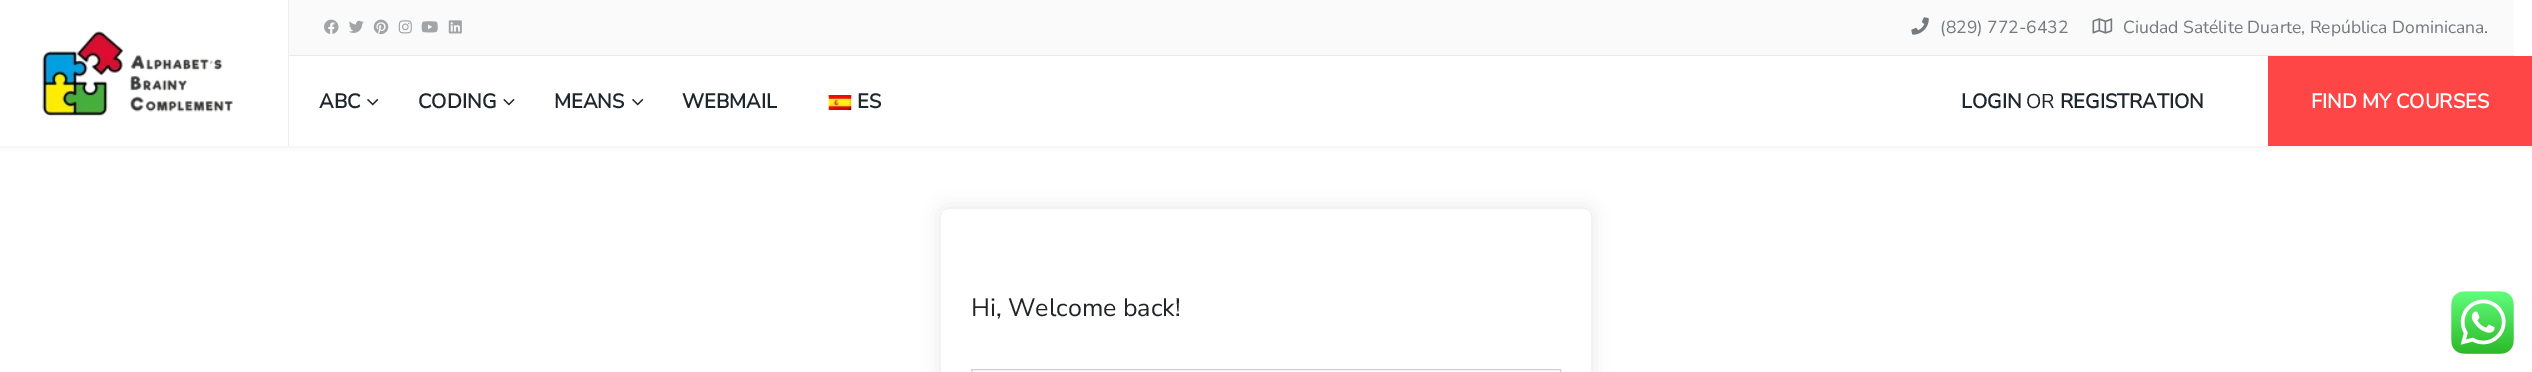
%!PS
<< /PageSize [2532 372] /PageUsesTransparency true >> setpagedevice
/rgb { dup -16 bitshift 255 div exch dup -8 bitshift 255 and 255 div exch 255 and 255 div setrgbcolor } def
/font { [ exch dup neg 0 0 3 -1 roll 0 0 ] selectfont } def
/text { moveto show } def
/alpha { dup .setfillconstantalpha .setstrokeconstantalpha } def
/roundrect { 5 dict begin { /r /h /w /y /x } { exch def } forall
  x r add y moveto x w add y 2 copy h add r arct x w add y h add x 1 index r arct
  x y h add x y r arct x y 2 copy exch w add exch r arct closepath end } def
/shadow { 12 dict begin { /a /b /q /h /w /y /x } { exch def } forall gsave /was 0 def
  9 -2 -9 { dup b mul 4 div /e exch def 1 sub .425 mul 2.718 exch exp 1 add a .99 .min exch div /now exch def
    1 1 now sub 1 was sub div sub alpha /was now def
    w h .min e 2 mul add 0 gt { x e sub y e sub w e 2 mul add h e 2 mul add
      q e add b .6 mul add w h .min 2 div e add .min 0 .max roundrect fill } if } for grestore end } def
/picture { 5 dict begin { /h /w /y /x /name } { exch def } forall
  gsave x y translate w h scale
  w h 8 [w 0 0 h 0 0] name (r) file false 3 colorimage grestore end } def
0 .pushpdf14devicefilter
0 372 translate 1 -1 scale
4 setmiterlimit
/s1 { /NunitoSans-ExtraLight 17.5 font 16#757A7F rgb } def
/s2 { /NunitoSans-Bold 20 font 16#1D252D rgb } def
/s3 { /NunitoSans-ExtraLight 20 font 16#1D252D rgb } def
/s4 { /NunitoSans-Bold 20 font 16#FFFFFF rgb } def
/s5 { /NunitoSans-ExtraLight 25 font 16#212327 rgb } def
16#FFFFFF rgb
0 0 2532 372 rectfill
16#000000 rgb
0 3 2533 146 0 2.5 0.04 shadow
16#FFFFFF rgb
0 1 2532 145 rectfill
(pic1.raw) 42 31 191 85 picture
16#EDEEEE rgb
288 0 1 146 rectfill
16#FAFAFA rgb
289 0 2225 55 rectfill
16#E8E9EA rgb
289 55 2225 1 rectfill
(pic2.raw) 324 19 15 15 picture
(pic3.raw) 349 20 15 13 picture
(pic4.raw) 373 19 16 16 picture
(pic5.raw) 398 20 14 14 picture
(pic6.raw) 421 21 17 12 picture
(pic7.raw) 448 20 14 14 picture
(pic8.raw) 1911 17 18 18 picture
s1
(\(829\) 772-6432) 1940 33 text
(pic9.raw) 2092 18 21 16 picture
(Ciudad Satélite Duarte, República Dominicana.) 2123 33 text
s2
(ABC) 319 108 text
(pic10.raw) 367 98 12 8 picture
(CODING) 418 108 text
(pic11.raw) 503 98 12 8 picture
(MEANS) 554 108 text
(pic10.raw) 632 98 12 8 picture
(WEBMAIL) 682 108 text
(pic12.raw) 828 95 24 15 picture
(ES) 857 108 text
(LOGIN) 1961 108 text
s3
(OR) 2026 108 text
s2
(REGISTRATION) 2060 108 text
16#FE4646 rgb
2268 56 264 90 rectfill
s4
(FIND MY COURSES) 2311 108 text
gsave
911 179 moveto 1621 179 lineto 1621 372 lineto 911 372 lineto closepath 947 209 moveto 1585 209 lineto 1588.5 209 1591 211.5 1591 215 curveto 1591 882 lineto 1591 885.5 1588.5 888 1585 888 curveto 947 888 lineto 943.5 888 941 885.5 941 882 curveto 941 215 lineto 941 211.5 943.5 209 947 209 curveto closepath eoclip newpath
16#000000 rgb
941 209 650 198 6 9.5 0.1 shadow
grestore
s5
(Hi, Welcome back!) 971 316 text
16#CDCFD5 rgb
971.5 369.5 589 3 rectstroke
(pic13.raw) 2451 291 63 63 picture
.poppdf14devicefilter showpage
